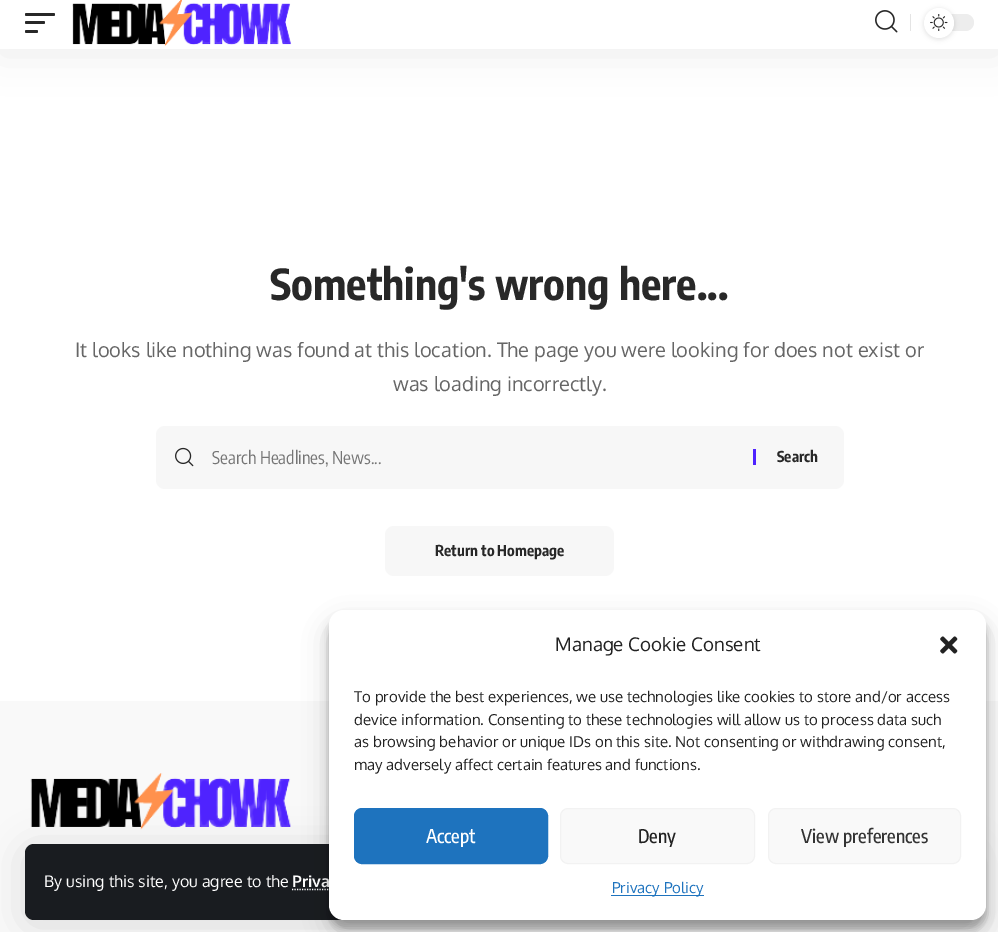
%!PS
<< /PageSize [998 932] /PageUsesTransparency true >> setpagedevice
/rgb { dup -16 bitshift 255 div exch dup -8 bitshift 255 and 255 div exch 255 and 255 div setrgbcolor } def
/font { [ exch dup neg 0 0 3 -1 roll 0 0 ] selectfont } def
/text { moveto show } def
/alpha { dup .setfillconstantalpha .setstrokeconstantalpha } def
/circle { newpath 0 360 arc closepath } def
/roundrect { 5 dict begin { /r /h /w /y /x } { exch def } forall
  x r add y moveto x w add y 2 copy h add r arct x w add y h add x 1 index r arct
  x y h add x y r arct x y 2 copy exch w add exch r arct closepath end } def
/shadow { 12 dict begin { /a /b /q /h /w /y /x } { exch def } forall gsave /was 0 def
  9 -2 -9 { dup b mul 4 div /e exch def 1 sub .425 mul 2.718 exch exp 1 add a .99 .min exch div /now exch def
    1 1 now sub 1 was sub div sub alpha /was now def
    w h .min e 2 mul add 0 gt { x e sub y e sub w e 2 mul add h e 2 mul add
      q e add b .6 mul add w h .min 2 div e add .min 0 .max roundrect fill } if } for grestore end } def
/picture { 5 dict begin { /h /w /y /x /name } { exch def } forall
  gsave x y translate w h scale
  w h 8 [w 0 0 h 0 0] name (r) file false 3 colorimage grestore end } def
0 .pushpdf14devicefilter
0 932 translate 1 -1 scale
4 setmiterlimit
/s1 { /EncodeSansCondensed-Bold 42.5 font 16#282828 rgb } def
/s2 { /Oxygen-Regular 20 font 16#666666 rgb } def
/s3 { /EncodeSansCondensed-Regular 17.5 font 16#757575 rgb } def
/s4 { /EncodeSansCondensed-Bold 15 font 16#282828 rgb } def
/s5 { /Oxygen-Regular 16 font 16#FFFFFF rgb } def
/s6 { /Oxygen-Bold 16 font 16#FFFFFF rgb } def
/s7 { /Oxygen-Regular 18.75 font 16#222222 rgb } def
/s8 { /Oxygen-Regular 15 font 16#222222 rgb } def
/s9 { /EncodeSansCondensed-Medium 18.75 font 16#FFFFFF rgb } def
/s10 { /EncodeSansCondensed-Medium 18.75 font 16#222222 rgb } def
/s11 { /EncodeSansCondensed-Medium 18.75 font 16#333333 rgb } def
/s12 { /Oxygen-Regular 15 font 16#1E73BE rgb } def
16#FFFFFF rgb
0 0 998 932 rectfill
s1
(Something's wrong here...) 270 300 text
s2
(It looks like nothing was found at this location. The page you were looking for does not exist or) 75 357 text
(was loading incorrectly.) 393 391 text
16#F7F7F7 rgb
156 426 688 63 9 roundrect fill
(pic1.raw) 175 447 19 20 picture
s3
(Search Headlines, News...) 212 464 text
16#4F23FF rgb
753 449 3 16 rectfill
s4
(Search) 777 462 text
16#F7F7F7 rgb
385 526 229 50 9 roundrect fill
s4
(Return to Homepage) 435 556 text
16#F9F9F9 rgb
0 701 998 231 rectfill
(pic2.raw) 30 773 261 57 picture
16#000000 rgb
0 1 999 53 0 19 0.07 shadow
16#FFFFFF rgb
0 0 998 49 rectfill
16#282828 rgb
25 13 30 3 1.5 roundrect fill
25 21 20 3 1.5 roundrect fill
25 30 13 3 1.5 roundrect fill
(pic3.raw) 72 0 220 46 picture
(pic4.raw) 875 10 23 23 picture
16#E4E4E4 rgb
910 14 1 17 rectfill
16#EDEDED rgb
924 14 50 17 8.5 roundrect fill
16#000000 rgb
924 9 30 30 15 2.5 0.12 shadow
16#FFFFFF rgb
939 23 15 circle fill
(pic5.raw) 930 14 18 17 picture
16#000000 rgb
25 849 949 76 9 19 0.12 shadow
16#191C20 rgb
25 844 949 76 9 roundrect fill
s5
(By using this site, you agree to the) 44 887 text
s6
(Priva) 292 887 text
1.2 setlinewidth
[1.25 1.25] 0 setdash
292 889.5 moveto 396.5 889.5 lineto stroke
16#000000 rgb
329 618 657 310 15 4 0.23 shadow
329 623 657 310 15 12.5 0.19 shadow
16#FFFFFF rgb
329 610 657 310 15 roundrect fill
s7
(Manage Cookie Consent) 555 651 text
(pic6.raw) 940 636 18 18 picture
s8
(To provide the best experiences, we use technologies like cookies to store and/or access) 354 702 text
(device information. Consenting to these technologies will allow us to process data such) 354 725 text
(as browsing behavior or unique IDs on this site. Not consenting or withdrawing consent,) 354 747 text
(may adversely affect certain features and functions.) 354 770 text
16#1E73BE rgb
354.5 808.5 193 55 7.5 roundrect gsave fill grestore
1 setlinewidth
[] 0 setdash
stroke
s9
(Accept) 426 843 text
16#F9F9F9 rgb
560.5 808.5 194 55 7.5 roundrect gsave fill grestore
16#F2F2F2 rgb
stroke
s10
(Deny) 638 843 text
16#F9F9F9 rgb
768.5 808.5 192 55 7.5 roundrect gsave fill grestore
16#F2F2F2 rgb
stroke
s11
(View preferences) 801 843 text
16#1E73BE rgb
611 895 93 1 rectfill
s12
(Privacy Policy) 612 893 text
.poppdf14devicefilter showpage
